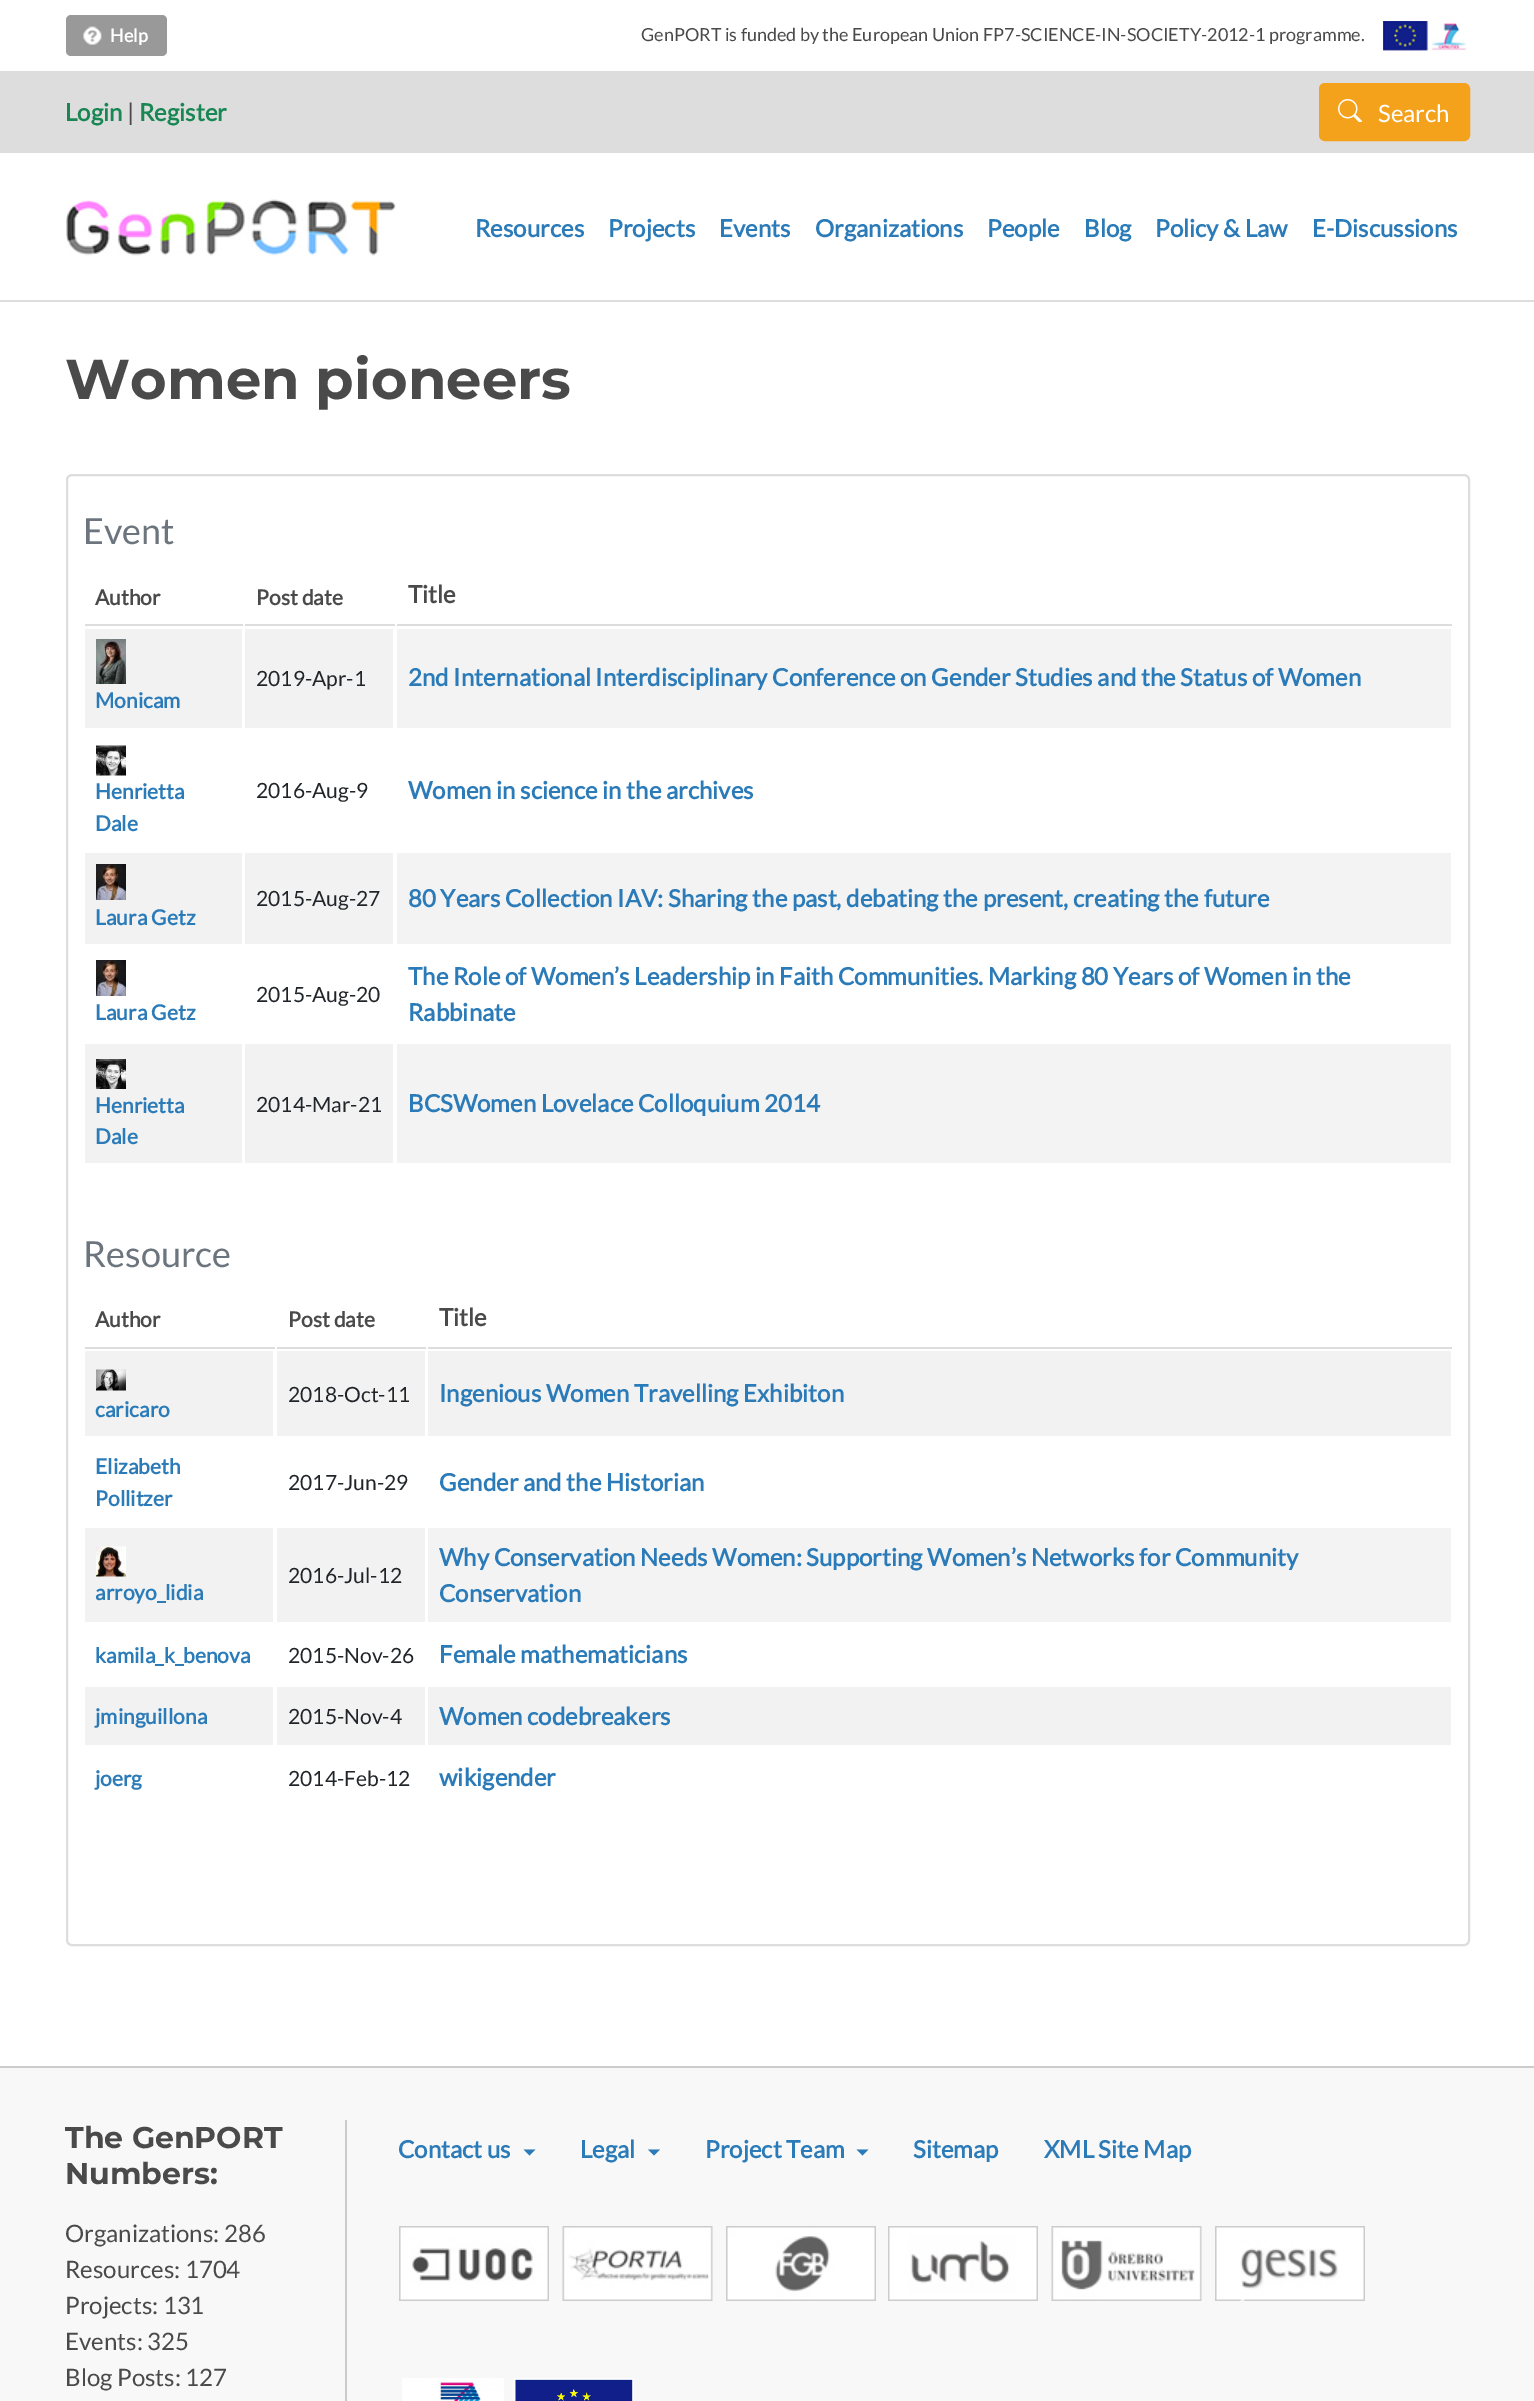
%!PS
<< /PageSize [1534 2401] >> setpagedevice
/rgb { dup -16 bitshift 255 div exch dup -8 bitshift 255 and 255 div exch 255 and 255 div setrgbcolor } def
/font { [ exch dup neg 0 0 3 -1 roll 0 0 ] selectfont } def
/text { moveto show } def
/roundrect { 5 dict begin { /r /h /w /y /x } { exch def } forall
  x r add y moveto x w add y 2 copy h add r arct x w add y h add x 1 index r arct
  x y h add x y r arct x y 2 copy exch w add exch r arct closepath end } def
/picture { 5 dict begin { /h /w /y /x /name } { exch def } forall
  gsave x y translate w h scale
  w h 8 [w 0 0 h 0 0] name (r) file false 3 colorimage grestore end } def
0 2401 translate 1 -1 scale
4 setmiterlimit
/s1 { /Lato-Bold 18 font 16#FFFFFF rgb } def
/s2 { /Lato-Regular 18 font 16#4A4A4A rgb } def
/s3 { /Lato-Bold 24 font 16#198754 rgb } def
/s4 { /Lato-Regular 24 font 16#4A4A4A rgb } def
/s5 { /Lato-Regular 24 font 16#FFFFFF rgb } def
/s6 { /Lato-Bold 24 font 16#2B7BB9 rgb } def
/s7 { /Montserrat-Bold 56 font 16#4A4A4A rgb } def
/s8 { /Lato-Regular 36 font 16#6C757D rgb } def
/s9 { /Lato-Bold 21 font 16#4A4A4A rgb } def
/s10 { /Lato-Bold 24 font 16#4A4A4A rgb } def
/s11 { /Lato-Regular 21 font 16#212529 rgb } def
/s12 { /Lato-Bold 21 font 16#2B7BB9 rgb } def
/s13 { /Montserrat-Bold 30 font 16#4A4A4A rgb } def
16#FFFFFF rgb
0 0 1534 2401 rectfill
16#999999 rgb
66 15 101 41 5 roundrect fill
(pic1.raw) 83 26 19 19 picture
s1
(Help) 110 42 text
s2
(GenPORT is funded by the European Union FP7-SCIENCE-IN-SOCIETY-2012-1 programme.) 641 41 text
(pic2.raw) 1383 21 84 30 picture
16#DDDDDD rgb
0 300 1534 2 rectfill
0 71 1534 82 rectfill
s3
(Login) 65 121 text
s4
(|) 127 121 text
s3
(Register) 139 121 text
16#F4A11B rgb
1320 84 149 56 5 roundrect gsave fill grestore
2 setlinewidth
stroke
(pic3.raw) 1338 99 24 23 picture
s5
(Search) 1378 122 text
(pic4.raw) 66 199 330 57 picture
s6
(Resources) 475 237 text
(Projects) 608 237 text
(Events) 719 237 text
(Organizations) 815 237 text
(People) 987 237 text
(Blog) 1084 237 text
(Policy & Law) 1155 237 text
(E-Discussions) 1312 237 text
s7
(Women pioneers) 65 399 text
16#DDDDDD rgb
67 475 1402 1470 5 roundrect stroke
s8
(Event) 83 544 text
16#DDDDDD rgb
83 624 1371 2 rectfill
16#FFFFFF rgb
83 624 2 2 rectfill
s9
(Author) 95 605 text
16#FFFFFF rgb
243 624 2 2 rectfill
s9
(Post date) 256 605 text
16#FFFFFF rgb
1452 624 2 2 rectfill
395 624 2 2 rectfill
s10
(Title) 408 603 text
16#F2F2F2 rgb
245 629 148 99 rectfill
s11
(2019-Apr-1) 256 686 text
16#F3F3F3 rgb
397 629 1054 99 rectfill
s6
(2nd International Interdisciplinary Conference on Gender Studies and the Status of Women) 408 686 text
16#F2F2F2 rgb
85 629 157 99 rectfill
(pic5.raw) 96 639 30 45 picture
s12
(Monicam) 95 708 text
(pic6.raw) 96 745 30 31 picture
(Henrietta) 95 799 text
(Dale) 95 831 text
s11
(2016-Aug-9) 256 798 text
s6
(Women in science in the archives) 408 799 text
16#F2F2F2 rgb
245 853 148 91 rectfill
s11
(2015-Aug-27) 256 906 text
16#F3F3F3 rgb
397 853 1054 91 rectfill
s6
(80 Years Collection IAV: Sharing the past, debating the present, creating the future) 408 907 text
16#F2F2F2 rgb
85 853 157 91 rectfill
(pic7.raw) 96 864 30 36 picture
s12
(Laura Getz) 95 925 text
s11
(2015-Aug-20) 256 1002 text
s6
(The Role of Women’s Leadership in Faith Communities. Marking 80 Years of Women in the) 408 985 text
(Rabbinate) 408 1021 text
(pic7.raw) 96 960 30 36 picture
s12
(Laura Getz) 95 1020 text
16#F2F2F2 rgb
85 1044 157 119 rectfill
(pic8.raw) 96 1059 30 30 picture
s12
(Henrietta) 95 1113 text
(Dale) 95 1144 text
16#F2F2F2 rgb
245 1044 148 119 rectfill
s11
(2014-Mar-21) 256 1112 text
16#F3F3F3 rgb
397 1044 1054 119 rectfill
s6
(BCSWomen Lovelace Colloquium 2014) 408 1112 text
s8
(Resource) 83 1267 text
16#DDDDDD rgb
83 1347 1371 2 rectfill
16#FFFFFF rgb
83 1347 2 2 rectfill
s9
(Author) 95 1327 text
16#FFFFFF rgb
275 1347 2 2 rectfill
s9
(Post date) 288 1327 text
16#FFFFFF rgb
1452 1347 2 2 rectfill
426 1347 2 2 rectfill
s10
(Title) 439 1326 text
16#F2F2F2 rgb
277 1351 148 85 rectfill
s11
(2018-Oct-11) 288 1402 text
16#F2F2F2 rgb
428 1351 1023 85 rectfill
s6
(Ingenious Women Travelling Exhibiton) 439 1402 text
16#F2F2F2 rgb
85 1351 188 85 rectfill
(pic9.raw) 96 1369 30 22 picture
s12
(caricaro) 95 1417 text
(Elizabeth) 95 1474 text
(Pollitzer) 95 1506 text
s11
(2017-Jun-29) 288 1490 text
s6
(Gender and the Historian) 439 1491 text
16#F2F2F2 rgb
277 1528 148 94 rectfill
s11
(2016-Jul-12) 288 1583 text
16#F3F3F3 rgb
428 1528 1023 94 rectfill
s6
(Why Conservation Needs Women: Supporting Women’s Networks for Community) 439 1566 text
(Conservation) 439 1602 text
16#F2F2F2 rgb
85 1528 188 94 rectfill
(pic10.raw) 96 1546 30 31 picture
s12
(arroyo_lidia) 95 1600 text
(kamila_k_benova) 95 1663 text
s11
(2015-Nov-26) 288 1663 text
s6
(Female mathematicians) 439 1663 text
16#F2F2F2 rgb
85 1687 188 58 rectfill
s12
(jminguillona) 95 1724 text
16#F2F2F2 rgb
277 1687 148 58 rectfill
s11
(2015-Nov-4) 288 1724 text
16#F2F2F2 rgb
428 1687 1023 58 rectfill
s6
(Women codebreakers) 439 1725 text
s12
(joerg) 95 1786 text
s11
(2014-Feb-12) 288 1786 text
s6
(wikigender) 439 1786 text
16#F8F8F8 rgb
0 2068 1534 333 rectfill
16#CCCCCC rgb
0 2066 1534 2 rectfill
345 2120 2 281 rectfill
s13
(The GenPORT) 65 2148 text
(Numbers:) 65 2184 text
s4
(Organizations: 286) 65 2242 text
(Resources: 1704) 65 2278 text
(Projects: 131) 65 2314 text
(Events: 325) 65 2350 text
(Blog Posts: 127) 65 2386 text
s6
(Contact us) 398 2158 text
523.5 2149.5 moveto 535.5 2149.5 lineto 529.5 2155.5 lineto closepath fill
(Legal) 580 2158 text
648 2149.5 moveto 660 2149.5 lineto 654 2155.5 lineto closepath fill
(Project Team) 705 2158 text
856.5 2149.5 moveto 868.5 2149.5 lineto 862.5 2155.5 lineto closepath fill
(Sitemap) 913 2158 text
(XML Site Map) 1044 2158 text
(pic11.raw) 399 2226 150 75 picture
(pic12.raw) 562 2226 151 75 picture
(pic13.raw) 726 2226 150 75 picture
(pic14.raw) 888 2226 150 75 picture
(pic15.raw) 1051 2226 151 75 picture
(pic16.raw) 1215 2226 150 75 picture
(pic17.raw) 402 2378 102 23 picture
(pic18.raw) 513 2378 121 23 picture
showpage
